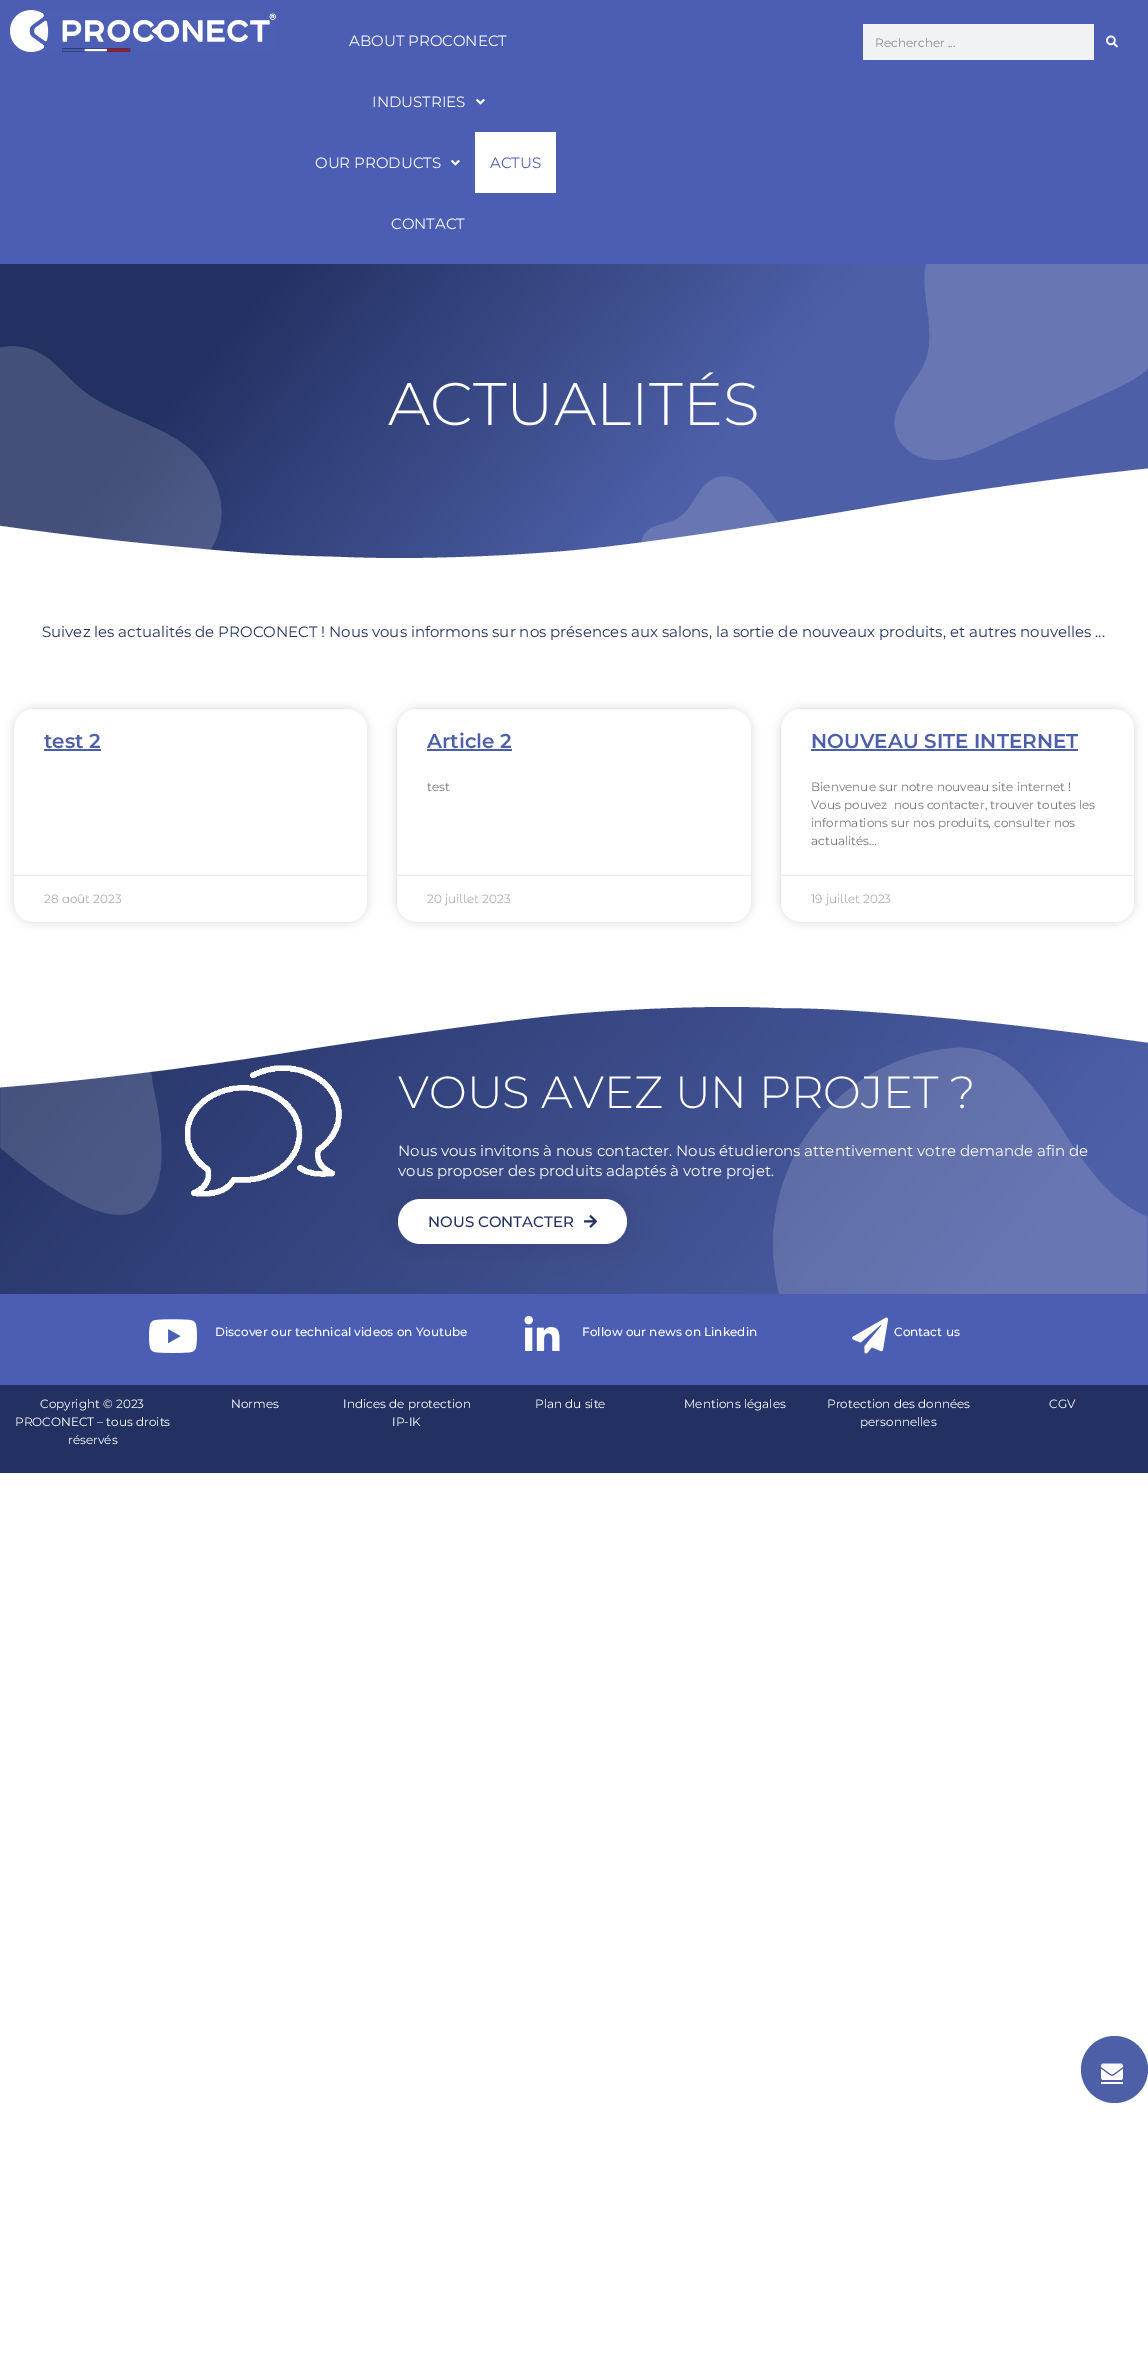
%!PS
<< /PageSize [1148 2353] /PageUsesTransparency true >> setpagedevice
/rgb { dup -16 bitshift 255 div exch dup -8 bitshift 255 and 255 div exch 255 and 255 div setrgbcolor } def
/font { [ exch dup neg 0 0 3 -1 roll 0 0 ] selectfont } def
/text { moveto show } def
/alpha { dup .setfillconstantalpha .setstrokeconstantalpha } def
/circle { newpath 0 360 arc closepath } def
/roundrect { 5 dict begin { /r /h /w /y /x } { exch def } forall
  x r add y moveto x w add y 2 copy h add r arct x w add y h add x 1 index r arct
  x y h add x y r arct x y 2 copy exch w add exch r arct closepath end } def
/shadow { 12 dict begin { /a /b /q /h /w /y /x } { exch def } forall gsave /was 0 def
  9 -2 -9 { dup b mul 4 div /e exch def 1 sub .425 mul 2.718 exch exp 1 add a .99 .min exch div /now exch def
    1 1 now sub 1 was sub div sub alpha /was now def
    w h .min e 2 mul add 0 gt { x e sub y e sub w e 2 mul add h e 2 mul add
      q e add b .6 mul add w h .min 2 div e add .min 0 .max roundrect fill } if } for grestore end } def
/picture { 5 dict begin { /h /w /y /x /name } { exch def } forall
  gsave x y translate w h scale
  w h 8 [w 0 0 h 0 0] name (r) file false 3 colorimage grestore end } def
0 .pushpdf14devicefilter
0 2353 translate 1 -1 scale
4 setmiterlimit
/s1 { /Montserrat-Regular 15 font 16#FFFFFF rgb } def
/s2 { /Montserrat-Regular 15 font 16#4C5EB4 rgb } def
/s3 { /Montserrat-Regular 12 font 16#878888 rgb } def
/s4 { /Montserrat-Light 60 font 16#FFFFFF rgb } def
/s5 { /Montserrat-Regular 15 font 16#243162 rgb } def
/s6 { /Montserrat-SemiBold 20 font 16#4D5FA7 rgb } def
/s7 { /MontserratAlternates-Regular 12 font 16#ADADAD rgb } def
/s8 { /Montserrat-Regular 12 font 16#777777 rgb } def
/s9 { /Montserrat-Light 45 font 16#FFFFFF rgb } def
/s10 { /Montserrat-Medium 15 font 16#243162 rgb } def
/s11 { /Montserrat-Medium 12 font 16#FFFFFF rgb } def
/s12 { /Montserrat-Regular 12 font 16#FFFFFF rgb } def
16#FFFFFF rgb
0 0 1148 2353 rectfill
16#4C5EB4 rgb
0 0 1148 264 rectfill
(pic1.raw) 10 10 266 42 picture
s1
(ABOUT PROCONECT) 349 46 text
(INDUSTRIES) 372 107 text
(pic2.raw) 476 99 9 6 picture
(OUR PRODUCTS) 315 168 text
(pic2.raw) 451 160 9 6 picture
475 132 81 61 rectfill
s2
(ACTUS) 490 168 text
s1
(CONTACT) 391 229 text
16#F1F2F3 rgb
863 24 231 36 rectfill
s3
(Rechercher ...) 875 47 text
(pic3.raw) 1106 35 12 13 picture
gsave 0 264 moveto 1148 264 lineto 1148 559 lineto 0 559 lineto closepath clip newpath
<< /ShadingType 2 /ColorSpace /DeviceRGB /Coords [196 30 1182 858] /Extend [true true] /Function << /FunctionType 3 /Domain [0 1] /Functions [<< /FunctionType 2 /Domain [0 1] /C0 [0.137 0.192 0.384] /C1 [0.137 0.192 0.384] /N 1 >> << /FunctionType 2 /Domain [0 1] /C0 [0.137 0.192 0.384] /C1 [0.302 0.373 0.655] /N 1 >> << /FunctionType 2 /Domain [0 1] /C0 [0.302 0.373 0.655] /C1 [0.302 0.373 0.655] /N 1 >>] /Bounds [0.17 0.52] /Encode [0 1 0 1 0 1] >> >> shfill grestore
(pic4.raw) 0 264 1148 286 picture
s4
(ACTUALITÉS) 388 425 text
341 557 moveto 408 560 495 557 566 551 curveto 637 545 778 523 866 508 curveto 1093 469 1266 455 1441 448 curveto 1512 446 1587 444 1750 451 curveto 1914 459 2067 482 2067 482 curveto 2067 565 lineto -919 565 lineto -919 529 lineto -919 529 -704 490 -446 492 curveto -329 493 -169 500 -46 519 curveto 17 529 110 541 192 548 curveto 273 556 310 556 341 557 curveto closepath fill
s5
(Suivez les actualités de PROCONECT ! Nous vous informons sur nos présences aux salons, la sortie de nouveaux produits, et autres nouvelles ...) 42 637 text
16#4D5FA7 rgb
1114.5 2069.5 33.5 circle fill
(pic5.raw) 1101 2063 22 17 picture
16#FFFFFF rgb
1101 2082 22 2 rectfill
16#000000 rgb
14 709 353 213 20 5 0.15 shadow
16#FFFFFF rgb
14 709 353 213 20 roundrect fill
s6
(test 2) 44 748 text
44 749 57 2 rectfill
16#EAEAEA rgb
14 875 353 1 rectfill
s7
(28 août 2023) 44 903 text
16#000000 rgb
397 709 354 213 20 5 0.15 shadow
16#FFFFFF rgb
397 709 354 213 20 roundrect fill
s6
(Article 2) 427 748 text
427 749 85 2 rectfill
s8
(test) 427 791 text
16#EAEAEA rgb
397 875 354 1 rectfill
s7
(20 juillet 2023) 427 903 text
16#000000 rgb
781 709 353 213 20 5 0.15 shadow
16#FFFFFF rgb
781 709 353 213 20 roundrect fill
s6
(NOUVEAU SITE INTERNET) 811 748 text
811 749 267 2 rectfill
s8
(Bienvenue sur notre nouveau site internet !) 811 791 text
(Vous pouvez  nous contacter, trouver toutes les) 811 809 text
(informations sur nos produits, consulter nos) 811 827 text
(actualités…) 811 845 text
16#EAEAEA rgb
781 875 353 1 rectfill
s7
(19 juillet 2023) 811 903 text
gsave 0 1006 moveto 1148 1006 lineto 1148 1294 lineto 0 1294 lineto closepath clip newpath
<< /ShadingType 2 /ColorSpace /DeviceRGB /Coords [165 805 983 1491] /Extend [true true] /Function << /FunctionType 3 /Domain [0 1] /Functions [<< /FunctionType 2 /Domain [0 1] /C0 [0.137 0.192 0.384] /C1 [0.302 0.373 0.655] /N 1 >> << /FunctionType 2 /Domain [0 1] /C0 [0.302 0.373 0.655] /C1 [0.302 0.373 0.655] /N 1 >>] /Bounds [0.89] /Encode [0 1 0 1] >> >> shfill grestore
(pic6.raw) 0 1047 1148 247 picture
16#FFFFFF rgb
780 1008 moveto 721 1005 644 1008 581 1013 curveto 519 1018 394 1036 315 1048 curveto 115 1081 -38 1093 -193 1098 curveto -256 1100 -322 1102 -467 1096 curveto -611 1090 -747 1070 -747 1070 curveto -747 1001 lineto 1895 1001 lineto 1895 1031 lineto 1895 1031 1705 1064 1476 1062 curveto 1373 1061 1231 1055 1122 1039 curveto 1066 1031 985 1021 912 1015 curveto 840 1009 808 1008 780 1008 curveto closepath fill
(pic7.raw) 185 1065 157 132 picture
s9
(VOUS AVEZ UN PROJET ?) 398 1108 text
s1
(Nous vous invitons à nous contacter. Nous étudierons attentivement votre demande afin de) 398 1156 text
(vous proposer des produits adaptés à votre projet.) 398 1176 text
16#000000 rgb
398 1199 229 45 22.5 15 0.1 shadow
16#FFFFFF rgb
398 1199 229 45 22.5 roundrect fill
s10
(NOUS CONTACTER) 428 1227 text
(pic8.raw) 584 1215 14 13 picture
16#4C5EB4 rgb
0 1294 1148 91 rectfill
(pic9.raw) 149 1319 48 34 picture
s11
(Discover our technical videos on Youtube) 215 1336 text
(pic10.raw) 524 1316 36 35 picture
(Follow our news on Linkedin) 582 1336 text
(pic11.raw) 852 1317 37 37 picture
(Contact us) 894 1336 text
16#233162 rgb
0 1385 1148 88 rectfill
s12
(Copyright © 2023) 40 1408 text
(PROCONECT – tous droits) 15 1426 text
(réservés) 68 1444 text
(Normes) 231 1408 text
(Indices de protection) 343 1408 text
(IP-IK) 392 1426 text
(Plan du site) 535 1408 text
(Mentions légales) 684 1408 text
(Protection des données) 827 1408 text
(personnelles) 860 1426 text
(CGV) 1049 1408 text
.poppdf14devicefilter showpage
